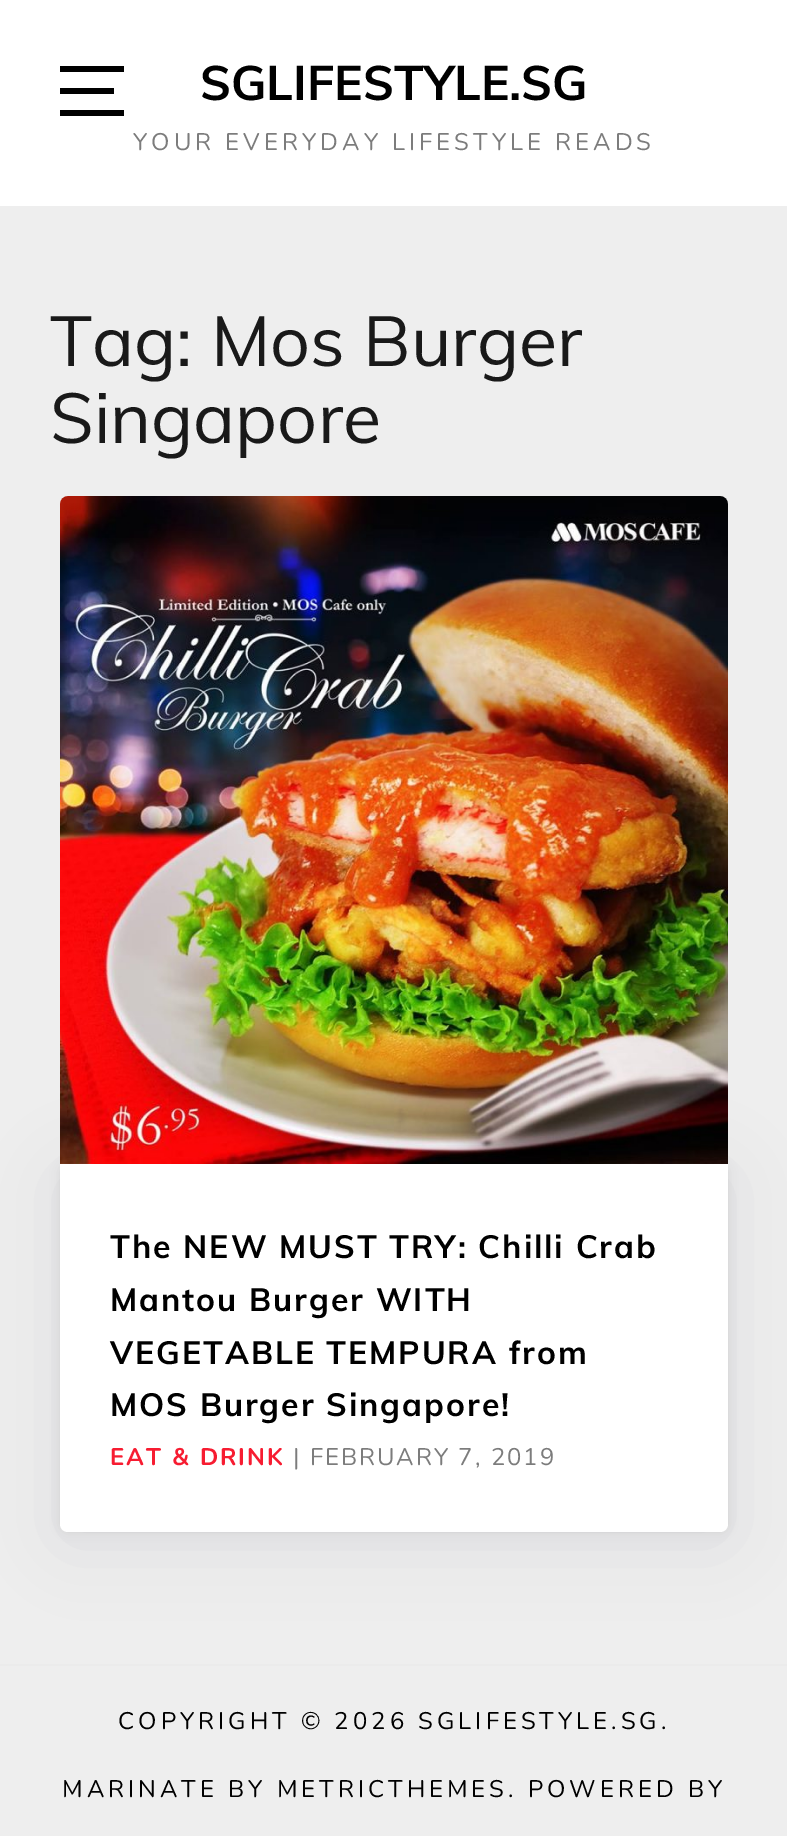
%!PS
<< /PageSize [787 1836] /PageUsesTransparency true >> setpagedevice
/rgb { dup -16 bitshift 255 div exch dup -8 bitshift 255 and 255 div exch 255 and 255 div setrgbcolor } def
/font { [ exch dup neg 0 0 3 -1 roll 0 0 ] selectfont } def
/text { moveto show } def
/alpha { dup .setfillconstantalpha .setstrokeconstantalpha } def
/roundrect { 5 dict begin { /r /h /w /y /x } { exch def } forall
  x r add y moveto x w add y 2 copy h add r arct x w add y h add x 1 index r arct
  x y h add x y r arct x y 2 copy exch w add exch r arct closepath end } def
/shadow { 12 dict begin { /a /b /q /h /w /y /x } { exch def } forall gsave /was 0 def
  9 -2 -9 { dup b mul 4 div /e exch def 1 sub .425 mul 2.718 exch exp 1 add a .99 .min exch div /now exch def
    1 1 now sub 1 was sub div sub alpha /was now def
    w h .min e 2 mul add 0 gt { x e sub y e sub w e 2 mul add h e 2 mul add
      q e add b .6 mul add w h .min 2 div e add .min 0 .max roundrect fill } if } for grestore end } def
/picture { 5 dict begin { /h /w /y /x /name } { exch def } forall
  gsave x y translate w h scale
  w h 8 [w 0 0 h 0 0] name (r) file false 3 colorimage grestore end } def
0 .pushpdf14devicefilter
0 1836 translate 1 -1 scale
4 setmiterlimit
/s1 { /Muli-Bold 48 font 16#000000 rgb } def
/s2 { /Muli-Regular 70 font 16#191919 rgb } def
16#EEEEEE rgb
0 0 787 1836 rectfill
16#FFFFFF rgb
0 0 787 206 rectfill
16#000000 rgb
60 88 54 6 rectfill
60 66 64 6 rectfill
60 110 64 6 rectfill
s1
(SGLIFESTYLE.SG) 200 100 text
/Nunito-Regular 24 font
16#7C7C7C rgb
133 150 moveto 4 0 (YOUR EVERYDAY LIFESTYLE READS) ashow
16#EBEBEB rgb
0 1664 787 2 rectfill
s2
(Tag: Mos Burger) 50 366 text
(Singapore) 50 443 text
16#000000 rgb
60 1164 668 368 8 5 0.07 shadow
16#32325D rgb
60 1174 668 368 8 35 0.1 shadow
(pic1.raw) 60 496 668 668 picture
16#FFFFFF rgb
60 1164 moveto 728 1164 lineto 728 1524 lineto 728 1528.5 724.5 1532 720 1532 curveto 68 1532 lineto 63.5 1532 60 1528.5 60 1524 curveto closepath fill
/Muli-Bold 32 font
16#000000 rgb
110 1258 moveto 2 0 (The NEW MUST TRY: Chilli Crab) ashow
110 1311 moveto 2 0 (Mantou Burger WITH) ashow
110 1364 moveto 2 0 (VEGETABLE TEMPURA from) ashow
110 1416 moveto 2 0 (MOS Burger Singapore!) ashow
/Nunito-Bold 24 font
16#F71C31 rgb
110 1465 moveto 2 0 (EAT & DRINK) ashow
/Nunito-Regular 24 font
16#7C7C7C rgb
293 1465 moveto 2 0 (| FEBRUARY 7, 2019) ashow
16#000000 rgb
118 1729 moveto 4 0 (COPYRIGHT © 2026 SGLIFESTYLE.SG.) ashow
62 1797 moveto 4 0 (MARINATE BY METRICTHEMES. POWERED BY) ashow
.poppdf14devicefilter showpage
